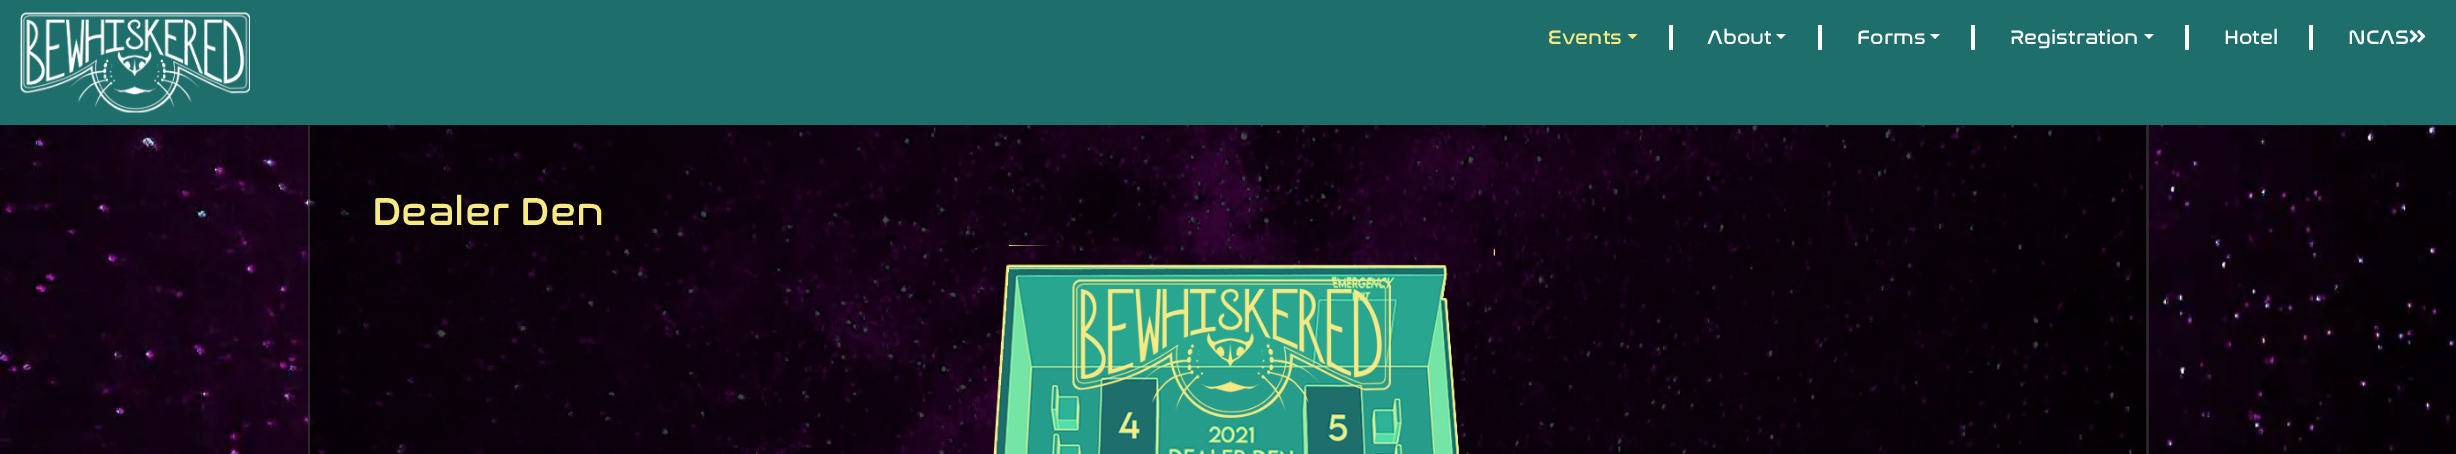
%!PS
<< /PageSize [2456 454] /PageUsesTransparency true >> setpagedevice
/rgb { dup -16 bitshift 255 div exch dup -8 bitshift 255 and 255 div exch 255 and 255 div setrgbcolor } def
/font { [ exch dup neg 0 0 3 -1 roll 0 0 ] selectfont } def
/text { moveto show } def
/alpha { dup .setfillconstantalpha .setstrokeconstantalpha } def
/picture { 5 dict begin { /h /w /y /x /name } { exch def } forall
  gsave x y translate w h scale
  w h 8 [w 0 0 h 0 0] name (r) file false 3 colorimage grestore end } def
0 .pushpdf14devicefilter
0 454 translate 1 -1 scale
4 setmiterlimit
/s1 { /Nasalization-Regular 20 font 16#F7EA83 rgb } def
/s2 { /Nasalization-Regular 20 font 16#FFFFFF rgb } def
/s3 { /Nasalization-Regular 40 font 16#F7EA83 rgb } def
16#FFFFFF rgb
0 0 2456 454 rectfill
(pic1.raw) 0 125 2456 329 picture
16#1E6E6C rgb
0 0 2456 125 rectfill
(pic2.raw) 20 12 230 101 picture
s1
(Events) 1548 44 text
1627.5 34 moveto 1637.5 34 lineto 1632.5 39 lineto closepath fill
16#FFFFFF rgb
1669 25 4 25 rectfill
(About) 1707 44 text
1776 34 moveto 1786 34 lineto 1781 39 lineto closepath fill
1818 25 4 25 rectfill
(Forms) 1857 44 text
1930 34 moveto 1940 34 lineto 1935 39 lineto closepath fill
1971 25 4 25 rectfill
(Registration) 2010 44 text
2144 34 moveto 2154 34 lineto 2149 39 lineto closepath fill
2185 25 4 25 rectfill
(Hotel) 2224 44 text
2309 25 4 25 rectfill
(NCAS) 2348 44 text
(pic3.raw) 2409 30 17 13 picture
0.7 alpha
16#000000 rgb
308 125 1841 329 rectfill
0.15 alpha
16#FFFFFF rgb
2149 125 moveto 2149 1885 lineto 2146 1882 lineto 2146 125 lineto closepath fill
308 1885 moveto 308 125 lineto 310 125 lineto 310 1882 lineto closepath fill
1 alpha
s3
(Dealer Den) 372 225 text
(pic4.raw) 993 245 502 209 picture
.poppdf14devicefilter showpage
